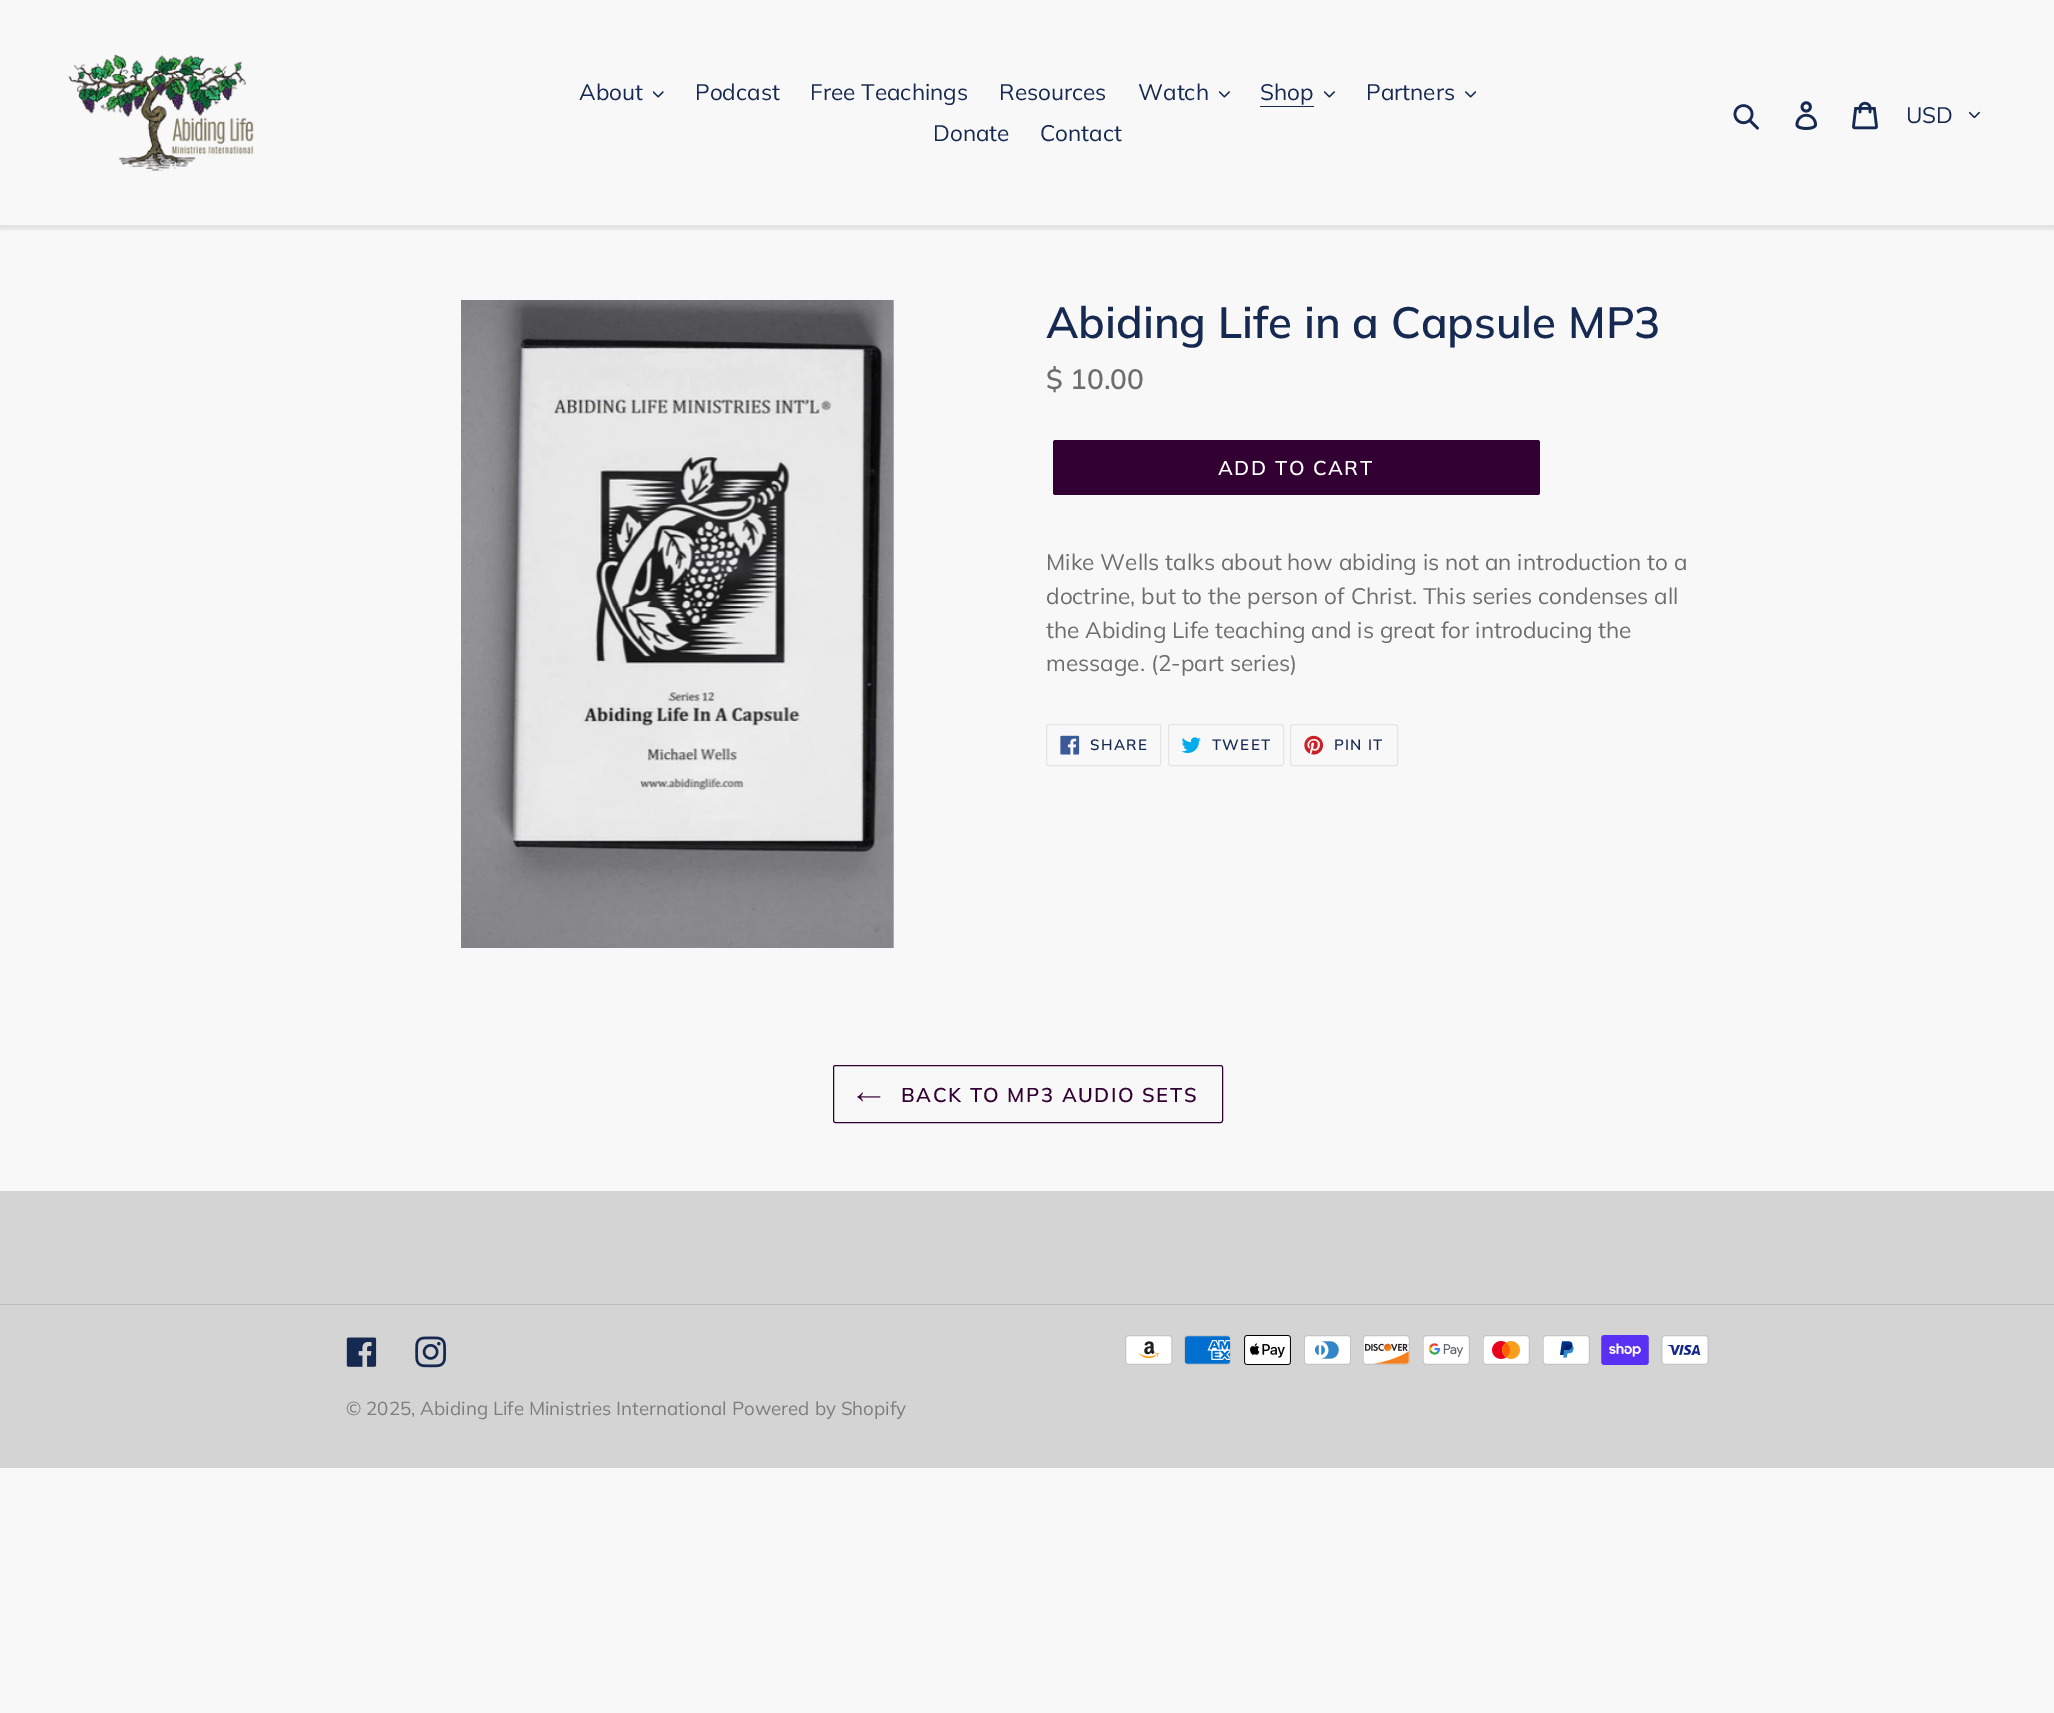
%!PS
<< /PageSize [2054 1713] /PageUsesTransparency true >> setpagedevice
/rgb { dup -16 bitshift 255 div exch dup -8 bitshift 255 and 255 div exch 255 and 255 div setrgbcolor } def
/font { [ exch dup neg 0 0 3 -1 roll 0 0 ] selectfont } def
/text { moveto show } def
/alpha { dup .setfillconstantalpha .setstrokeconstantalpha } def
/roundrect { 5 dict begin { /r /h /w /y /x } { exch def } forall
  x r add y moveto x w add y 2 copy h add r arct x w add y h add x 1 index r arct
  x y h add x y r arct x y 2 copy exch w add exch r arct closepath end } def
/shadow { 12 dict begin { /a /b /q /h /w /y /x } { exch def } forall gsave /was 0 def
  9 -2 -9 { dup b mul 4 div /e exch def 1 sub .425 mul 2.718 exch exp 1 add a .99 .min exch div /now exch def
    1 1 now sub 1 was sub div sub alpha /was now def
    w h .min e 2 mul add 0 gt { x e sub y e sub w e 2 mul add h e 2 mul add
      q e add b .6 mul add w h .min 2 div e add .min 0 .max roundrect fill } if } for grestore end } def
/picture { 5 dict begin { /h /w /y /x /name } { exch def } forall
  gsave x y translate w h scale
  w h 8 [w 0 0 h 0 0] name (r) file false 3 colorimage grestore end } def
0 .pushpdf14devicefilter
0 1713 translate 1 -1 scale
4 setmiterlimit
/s1 { /Muli-Regular 22.5 font 16#162950 rgb } def
/s2 { /Muli-SemiBold 43.75 font 16#162950 rgb } def
/s3 { /Muli-SemiBold 28 font 16#6D6D6D rgb } def
/s4 { /Muli-Regular 22.5 font 16#6D6D6D rgb } def
/s5 { /Muli-Regular 18.75 font 16#7E7C7C rgb } def
16#F8F8F8 rgb
0 0 2054 1713 rectfill
gsave
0 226 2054 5 rectclip
16#000000 rgb
0 3 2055 226 0 2.5 0.1 shadow
grestore
16#E4E4E4 rgb
0 225 2054 1 rectfill
(pic1.raw) 68 54 186 117 picture
s1
(About) 579 100 text
(pic2.raw) 653 91 11 7 picture
(Podcast) 695 100 text
(Free Teachings) 810 100 text
(Resources) 999 100 text
(Watch) 1138 100 text
(pic3.raw) 1219 91 11 7 picture
(Shop) 1260 100 text
1260 106 54 1 rectfill
(pic3.raw) 1324 91 11 7 picture
(Partners) 1366 100 text
(pic4.raw) 1465 91 11 7 picture
(Donate) 933 141 text
(Contact) 1040 141 text
(pic5.raw) 1733 104 26 26 picture
(pic6.raw) 1795 101 23 29 picture
(pic7.raw) 1852 101 26 29 picture
(USD) 1906 123 text
(pic8.raw) 1969 111 11 8 picture
(pic9.raw) 461 300 433 648 picture
s2
(Abiding Life in a Capsule MP3) 1046 338 text
s3
($ 10.00) 1046 389 text
16#330033 rgb
1053 440 487 55 2.5 roundrect fill
/Muli-SemiBold 20 font
16#FFFFFF rgb
1218 475 moveto 1.6 0 (ADD TO CART) ashow
s4
(Mike Wells talks about how abiding is not an introduction to a) 1046 570 text
(doctrine, but to the person of Christ. This series condenses all) 1046 604 text
(the Abiding Life teaching and is great for introducing the) 1046 638 text
(message. \(2-part series\)) 1046 671 text
16#E4E4E4 rgb
1046.5 724.5 114 41 2 roundrect stroke
(pic10.raw) 1060 735 20 20 picture
/Muli-SemiBold 15 font
16#162950 rgb
1090 750 moveto 1.25 0 (SHARE) ashow
16#E4E4E4 rgb
1168.5 724.5 115 41 2 roundrect stroke
(pic11.raw) 1181 737 20 16 picture
16#162950 rgb
1212 750 moveto 1.25 0 (TWEET) ashow
16#E4E4E4 rgb
1290.5 724.5 107 41 2 roundrect stroke
(pic12.raw) 1304 735 20 20 picture
16#162950 rgb
1334 750 moveto 1.25 0 (PIN IT) ashow
16#330033 rgb
833.5 1065.5 389 57 2 roundrect stroke
(pic13.raw) 857 1092 24 10 picture
/Muli-SemiBold 20 font
901 1102 moveto 1.6 0 (BACK TO MP3 AUDIO SETS) ashow
16#D4D4D4 rgb
0 1191 2054 277 rectfill
16#BBBBBB rgb
0 1304 2054 1 rectfill
(pic14.raw) 346 1337 31 30 picture
(pic15.raw) 415 1336 31 32 picture
(pic16.raw) 1125 1335 48 30 picture
(pic17.raw) 1184 1335 47 30 picture
(pic18.raw) 1244 1335 47 30 picture
(pic19.raw) 1304 1335 47 30 picture
(pic20.raw) 1363 1335 47 30 picture
(pic21.raw) 1423 1335 47 30 picture
(pic22.raw) 1483 1335 47 30 picture
(pic23.raw) 1543 1335 47 30 picture
(pic24.raw) 1601 1335 48 30 picture
(pic25.raw) 1661 1335 48 30 picture
s5
(© 2025, Abiding Life Ministries International) 346 1415 text
(Powered by Shopify) 732 1415 text
.poppdf14devicefilter showpage
